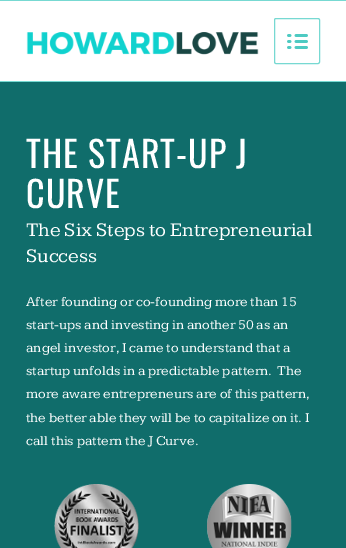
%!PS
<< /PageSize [346 548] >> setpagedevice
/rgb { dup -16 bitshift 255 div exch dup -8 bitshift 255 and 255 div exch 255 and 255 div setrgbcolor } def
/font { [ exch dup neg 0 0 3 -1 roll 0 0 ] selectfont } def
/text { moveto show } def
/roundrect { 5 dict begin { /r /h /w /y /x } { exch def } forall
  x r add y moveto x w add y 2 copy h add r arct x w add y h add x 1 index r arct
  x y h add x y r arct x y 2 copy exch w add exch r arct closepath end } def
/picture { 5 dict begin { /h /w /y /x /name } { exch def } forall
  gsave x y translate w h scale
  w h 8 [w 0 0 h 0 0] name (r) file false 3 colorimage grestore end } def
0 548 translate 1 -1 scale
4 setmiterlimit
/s1 { /Kameron-Regular 20 font 16#FFFFFF rgb } def
/s2 { /Kameron-Regular 14 font 16#FFFFFF rgb } def
16#106D6B rgb
0 0 346 548 rectfill
16#77D9D2 rgb
0 0 346 1 rectfill
0 81 346 1 rectfill
16#FFFFFF rgb
0 1 346 80 rectfill
(pic1.raw) 26 32 233 23 picture
16#77D9D2 rgb
274.5 18.5 45 45 1.5 roundrect stroke
(pic2.raw) 287 34 21 15 picture
/Oswald-Regular 36 font
16#FFFFFF rgb
26 168 moveto 1 0 (THE START-UP J) ashow
26 208 moveto 1 0 (CURVE) ashow
s1
(The Six Steps to Entrepreneurial) 26 236 text
(Success) 26 262 text
s2
(After founding or co-founding more than 15) 26 306 text
(start-ups and investing in another 50 as an) 26 329 text
(angel investor, I came to understand that a) 26 352 text
(startup unfolds in a predictable pattern.  The) 26 375 text
(more aware entrepreneurs are of this pattern,) 26 398 text
(the better able they will be to capitalize on it. I) 26 422 text
(call this pattern the J Curve.) 26 445 text
(pic3.raw) 54 484 85 64 picture
(pic4.raw) 207 484 85 64 picture
showpage
